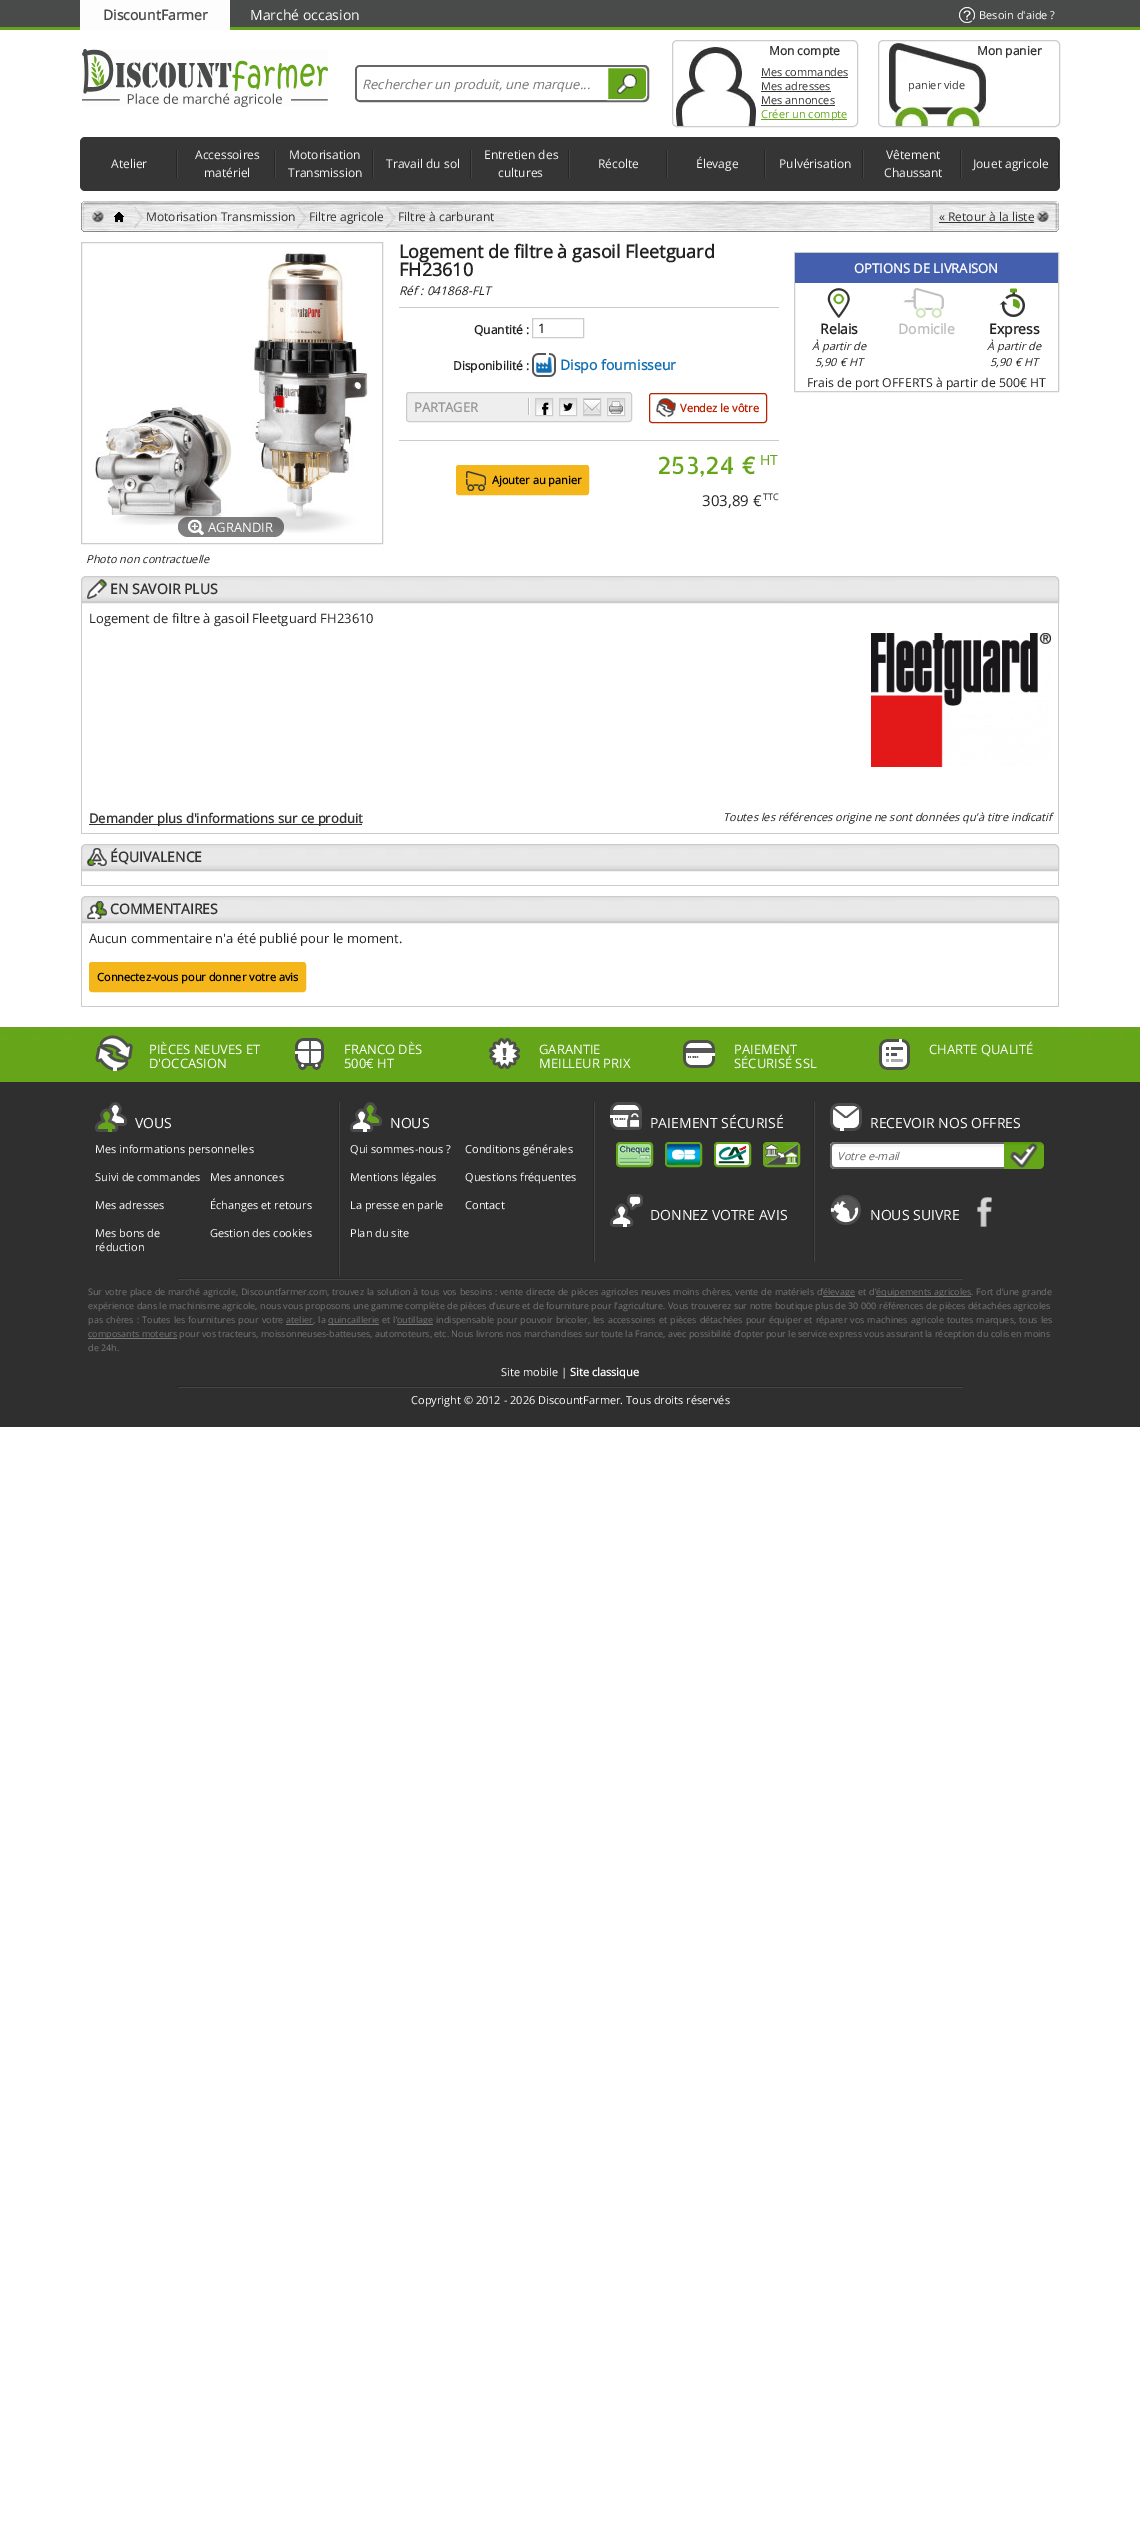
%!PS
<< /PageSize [1140 2534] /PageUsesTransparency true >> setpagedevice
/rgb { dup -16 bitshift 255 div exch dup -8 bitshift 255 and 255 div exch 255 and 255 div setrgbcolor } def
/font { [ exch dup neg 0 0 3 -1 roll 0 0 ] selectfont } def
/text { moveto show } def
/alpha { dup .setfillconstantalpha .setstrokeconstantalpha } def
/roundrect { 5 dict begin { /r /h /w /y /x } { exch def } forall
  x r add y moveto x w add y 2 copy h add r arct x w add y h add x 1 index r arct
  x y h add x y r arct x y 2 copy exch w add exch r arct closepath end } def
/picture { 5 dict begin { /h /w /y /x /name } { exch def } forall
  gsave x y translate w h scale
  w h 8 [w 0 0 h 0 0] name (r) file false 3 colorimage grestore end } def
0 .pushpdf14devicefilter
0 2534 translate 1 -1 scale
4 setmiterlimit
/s1 { /OpenSans-Bold 14 font 16#494B4A rgb } def
/s2 { /OpenSans-Regular 14 font 16#FDFDFD rgb } def
/s3 { /OpenSans-Regular 11 font 16#FDFDFD rgb } def
/s4 { /OpenSans-Italic 13 font 16#777777 rgb } def
/s5 { /OpenSans-Bold 12 font 16#333333 rgb } def
/s6 { /OpenSans-Regular 11 font 16#333333 rgb } def
/s7 { /OpenSans-Regular 11 font 16#65A519 rgb } def
/s8 { /OpenSans-Regular 12 font 16#F5F5F5 rgb } def
/s9 { /OpenSans-Regular 12 font 16#333333 rgb } def
/s10 { /OpenSans-Bold 18 font 16#222222 rgb } def
/s11 { /OpenSans-Italic 12 font 16#222222 rgb } def
/s12 { /OpenSans-Bold 12 font 16#222222 rgb } def
/s13 { /OpenSans-Regular 13 font 16#000000 rgb } def
/s14 { /OpenSans-Bold 14 font 16#1270B2 rgb } def
/s15 { /OpenSans-Bold 13 font 16#999999 rgb } def
/s16 { /OpenSans-Bold 11 font 16#BB2200 rgb } def
/s17 { /OpenSans-Bold 11 font 16#000000 rgb } def
/s18 { /AllertaStencil-Regular 24 font 16#65A519 rgb } def
/s19 { /OpenSans-Regular 14 font 16#65A519 rgb } def
/s20 { /OpenSans-Regular 15 font 16#222222 rgb } def
/s21 { /OpenSans-Regular 9 font 16#222222 rgb } def
/s22 { /OpenSans-Bold 13 font 16#FDFDFD rgb } def
/s23 { /OpenSans-Bold 14 font 16#222222 rgb } def
/s24 { /OpenSans-Italic 11 font 16#222222 rgb } def
/s25 { /OpenSans-Bold 14 font 16#BDBDBD rgb } def
/s26 { /OpenSans-Regular 12.3 font 16#222222 rgb } def
/s27 { /OpenSans-Regular 13 font 16#FDFDFD rgb } def
/s28 { /OpenSans-Bold 14 font 16#333333 rgb } def
/s29 { /OpenSans-Regular 13 font 16#222222 rgb } def
/s30 { /OpenSans-Bold 13 font 16#333333 rgb } def
/s31 { /OpenSans-Italic 11 font 16#666666 rgb } def
/s32 { /OpenSans-Regular 9 font 16#777777 rgb } def
/s33 { /OpenSans-Bold 11 font 16#FDFDFD rgb } def
16#FFFFFF rgb
0 0 1140 2534 rectfill
16#494B4A rgb
0 0 1140 27 rectfill
16#65A519 rgb
0 27 1140 3 rectfill
16#FDFDFD rgb
80 0 150 30 rectfill
s1
(DiscountFarmer) 103 20 text
s2
(Marché occasion) 250 20 text
(pic1.raw) 959 7 16 16 picture
s3
(Besoin d'aide ?) 979 19 text
(pic2.raw) 82 49 246 58 picture
16#666666 rgb
2 setlinewidth
356 66 292 35 4 roundrect stroke
16#FFFFFF rgb
360 67 moveto 607 67 lineto 607 100 lineto 360 100 lineto 358.5 100 357 98.5 357 97 curveto 357 70 lineto 357 68.5 358.5 67 360 67 curveto closepath fill
s4
(Rechercher un produit, une marque...) 362 89 text
16#65A519 rgb
607 67 moveto 642 67 lineto 645 67 647 69 647 72 curveto 647 95 lineto 647 98 645 100 642 100 curveto 607 100 lineto closepath fill
(pic3.raw) 617 74 20 20 picture
16#FFFFFF rgb
1 setlinewidth
607.5 67.5 moveto 642 67.5 lineto 644.5 67.5 646.5 69.5 646.5 72 curveto 646.5 95 lineto 646.5 97.5 644.5 99.5 642 99.5 curveto 607.5 99.5 lineto closepath stroke
(pic4.raw) 676 46 80 80 picture
16#CCCCCC rgb
672.5 40.5 185 86 4.5 roundrect stroke
s5
(Mon compte) 769 55 text
s6
(Mes commandes) 761 76 text
761 77 87 1 rectfill
(Mes adresses) 761 90 text
761 91 70 1 rectfill
(Mes annonces) 761 104 text
761 105 74 1 rectfill
16#65A519 rgb
761 119 86 1 rectfill
(Créer un compte) 761 118 text
(pic5.raw) 889 41 97 85 picture
16#CCCCCC rgb
878.5 40.5 181 86 4.5 roundrect stroke
s5
(Mon panier) 977 55 text
s6
(panier vide) 908 89 text
16#353535 rgb
80 137 980 54 5 roundrect fill
(pic6.raw) 176 150 2 28 picture
s8
(Atelier) 111 168 text
(pic6.raw) 274 150 2 28 picture
(Accessoires) 195 159 text
(matériel) 204 177 text
(pic6.raw) 372 150 2 28 picture
(Motorisation) 289 159 text
(Transmission) 288 177 text
(pic6.raw) 470 150 2 28 picture
(Travail du sol) 386 168 text
(pic6.raw) 568 150 2 28 picture
(Entretien des) 484 159 text
(cultures) 498 177 text
(pic6.raw) 666 150 2 28 picture
(Récolte) 598 168 text
(pic6.raw) 764 150 2 28 picture
(Élevage) 696 168 text
(pic6.raw) 862 150 2 28 picture
(Pulvérisation) 779 168 text
(pic6.raw) 960 150 2 28 picture
(Vêtement) 886 159 text
(Chaussant) 884 177 text
(pic6.raw) 1058 150 2 28 picture
(Jouet agricole) 973 168 text
(pic7.raw) 81 201 978 31 picture
(pic8.raw) 114 212 10 10 picture
(pic9.raw) 134 207 10 21 picture
s9
(Motorisation Transmission) 146 221 text
(pic10.raw) 297 207 10 21 picture
(Filtre agricole) 309 221 text
(pic11.raw) 386 207 10 21 picture
(Filtre à carburant) 398 221 text
0.96 alpha
16#D7D7D7 rgb
930 204 3 27 rectfill
1 alpha
s9
(« Retour à la liste) 939 221 text
939 222 95 1 rectfill
s10
(Logement de filtre à gasoil Fleetguard) 399 258 text
(FH23610) 399 276 text
s11
(Réf : 041868-FLT) 399 295 text
16#CCCCCC rgb
399 307 380 1 rectfill
s12
(Quantité :) 474 334 text
16#CCCCCC rgb
532.5 318.5 51 19 rectstroke
s13
(1) 538 333 text
s12
(Disponibilité :) 453 370 text
(pic12.raw) 532 353 24 24 picture
s14
(Dispo fournisseur) 560 370 text
16#EEEEEE rgb
406.5 392.5 225 29 2.5 roundrect gsave fill grestore
16#CCCCCC rgb
stroke
s15
(PARTAGER) 414 412 text
(pic13.raw) 528 398 2 17 picture
(pic14.raw) 536 399 16 16 picture
16#CCCCCC rgb
535.5 398.5 17 17 rectstroke
(pic15.raw) 560 399 16 16 picture
559.5 398.5 17 17 rectstroke
(pic16.raw) 584 399 16 16 picture
583.5 398.5 17 17 rectstroke
(pic17.raw) 608 399 16 16 picture
607.5 398.5 17 17 rectstroke
(pic18.raw) 656 398 20 19 picture
16#BB2200 rgb
649.5 393.5 117 29 2.5 roundrect stroke
s16
(Vendez le vôtre) 680 412 text
16#CCCCCC rgb
399 440 380 1 rectfill
16#F4B61B rgb
456 465 133 30 3 roundrect fill
(pic19.raw) 466 471 20 20 picture
456.5 465.5 132 29 2.5 roundrect stroke
s17
(Ajouter au panier) 492 484 text
s18
(253,24 €) 657 474 text
s19
(HT) 760 465 text
s20
(303,89 €) 702 506 text
s21
(TTC) 763 500 text
16#CCCCCC rgb
794.5 252.5 264 139 rectstroke
16#435FAD rgb
795 253 263 30 rectfill
s22
(OPTIONS DE LIVRAISON) 854 273 text
(pic20.raw) 827 288 23 30 picture
(pic21.raw) 903 288 41 30 picture
(pic22.raw) 999 288 26 29 picture
s23
(Relais) 820 334 text
s24
(À partir de) 812 350 text
(5,90 € HT) 815 366 text
s25
(Domicile) 898 334 text
s23
(Express) 989 334 text
s24
(À partir de) 987 350 text
(5,90 € HT) 990 366 text
s26
(Frais de port OFFERTS à partir de 500€ HT) 807 387 text
16#CCCCCC rgb
81.5 242.5 301 301 rectstroke
(pic23.raw) 95 251 273 282 picture
0.5 alpha
16#000000 rgb
178 517 106 20 10 roundrect fill
1 alpha
(pic24.raw) 188 519 16 16 picture
s27
(AGRANDIR) 208 532 text
s24
(Photo non contractuelle) 86 563 text
(pic25.raw) 81 577 978 24 picture
16#CCCCCC rgb
86 576.5 moveto 1054 576.5 lineto 1056.5 576.5 1058.5 578.5 1058.5 581 curveto 1058.5 602.5 lineto 81.5 602.5 lineto 81.5 581 lineto 81.5 578.5 83.5 576.5 86 576.5 curveto closepath stroke
81 601 978 1 rectfill
(pic26.raw) 87 579 20 20 picture
s28
(EN SAVOIR PLUS) 110 594 text
16#CCCCCC rgb
1058 603 1 231 rectfill
81 833 978 1 rectfill
81 603 1 231 rectfill
s29
(Logement de filtre à gasoil Fleetguard FH23610) 89 623 text
(pic27.raw) 871 633 180 134 picture
16#333333 rgb
89 824 273 1 rectfill
s30
(Demander plus d'informations sur ce produit) 89 823 text
s24
(Toutes les références origine ne sont données qu'à titre indicatif) 723 821 text
(pic25.raw) 81 845 978 24 picture
16#CCCCCC rgb
86 844.5 moveto 1054 844.5 lineto 1056.5 844.5 1058.5 846.5 1058.5 849 curveto 1058.5 870.5 lineto 81.5 870.5 lineto 81.5 849 lineto 81.5 846.5 83.5 844.5 86 844.5 curveto closepath stroke
81 869 978 1 rectfill
(pic28.raw) 87 848 20 18 picture
s28
(ÉQUIVALENCE) 110 862 text
16#CCCCCC rgb
1058 871 1 15 rectfill
81 885 978 1 rectfill
81 871 1 15 rectfill
(pic25.raw) 81 897 978 24 picture
86 896.5 moveto 1054 896.5 lineto 1056.5 896.5 1058.5 898.5 1058.5 901 curveto 1058.5 922.5 lineto 81.5 922.5 lineto 81.5 901 lineto 81.5 898.5 83.5 896.5 86 896.5 curveto closepath stroke
81 921 978 1 rectfill
(pic29.raw) 87 901 20 18 picture
s28
(COMMENTAIRES) 110 914 text
16#CCCCCC rgb
1058 923 1 84 rectfill
81 1006 978 1 rectfill
81 923 1 84 rectfill
s29
(Aucun commentaire n'a été publié pour le moment.) 89 943 text
16#F4B61B rgb
89.5 962.5 216 29 2.5 roundrect gsave fill grestore
stroke
s17
(Connectez-vous pour donner votre avis) 97 981 text
16#2F2F2F rgb
0 1082 1140 345 rectfill
(pic30.raw) 0 1027 1140 55 picture
16#65A519 rgb
80 1027 980 55 rectfill
(pic31.raw) 95 1035 38 36 picture
s27
(PIÈCES NEUVES ET) 149 1054 text
(D'OCCASION) 149 1068 text
(pic32.raw) 295 1038 29 32 picture
(FRANCO DÈS) 344 1054 text
(500€ HT) 344 1068 text
(pic33.raw) 489 1038 31 31 picture
(GARANTIE) 539 1054 text
(MEILLEUR PRIX) 539 1068 text
(pic34.raw) 683 1040 32 28 picture
(PAIEMENT) 734 1054 text
(SÉCURISÉ SSL) 734 1068 text
(pic35.raw) 879 1039 31 31 picture
(CHARTE QUALITÉ) 929 1054 text
(pic36.raw) 338 1102 2 174 picture
(pic37.raw) 95 1102 32 30 picture
s2
(VOUS) 135 1128 text
s3
(Mes informations personnelles) 95 1153 text
(Suivi de commandes) 95 1181 text
(Mes annonces) 210 1181 text
(Mes adresses) 95 1209 text
(Échanges et retours) 210 1209 text
(Mes bons de) 95 1237 text
(réduction) 95 1251 text
(Gestion des cookies) 210 1237 text
(pic38.raw) 593 1102 2 160 picture
(pic39.raw) 350 1102 32 30 picture
s2
(NOUS) 390 1128 text
s3
(Qui sommes-nous ?) 350 1153 text
(Conditions générales) 465 1153 text
(Mentions légales) 350 1181 text
(Questions fréquentes) 465 1181 text
(La presse en parle) 350 1209 text
(Contact) 465 1209 text
(Plan du site) 350 1237 text
(pic40.raw) 813 1102 2 82 picture
(pic41.raw) 610 1102 32 28 picture
s2
(PAIEMENT SÉCURISÉ) 650 1128 text
16#65A519 rgb
2 setlinewidth
617 1143 35 23 3 roundrect stroke
(pic42.raw) 618 1144 33 21 picture
666 1143 35 23 3 roundrect stroke
(pic43.raw) 667 1144 33 21 picture
715 1143 35 23 3 roundrect stroke
(pic44.raw) 716 1144 33 21 picture
764 1143 35 23 3 roundrect stroke
(pic45.raw) 765 1144 33 21 picture
(pic46.raw) 830 1103 32 28 picture
s2
(RECEVOIR NOS OFFRES) 870 1128 text
16#FFFFFF rgb
835 1142 moveto 1004 1142 lineto 1004 1169 lineto 835 1169 lineto 832 1169 830 1167 830 1164 curveto 830 1147 lineto 830 1144 832 1142 835 1142 curveto closepath fill
16#F6F6F6 rgb
830 1144 174 3 rectfill
16#666666 rgb
835 1142 moveto 1004 1142 lineto 1004 1169 lineto 835 1169 lineto 832 1169 830 1167 830 1164 curveto 830 1147 lineto 830 1144 832 1142 835 1142 curveto closepath 835 1144 moveto 1004 1144 lineto 1004 1167 lineto 835 1167 lineto 833 1167 832 1166 832 1164 curveto 832 1147 lineto 832 1145 833 1144 835 1144 curveto closepath eofill
s31
(Votre e-mail) 837 1160 text
16#65A519 rgb
1004 1142 moveto 1039 1142 lineto 1042 1142 1044 1144 1044 1147 curveto 1044 1164 lineto 1044 1167 1042 1169 1039 1169 curveto 1004 1169 lineto closepath fill
(pic47.raw) 1004 1142 40 26 picture
(pic48.raw) 813 1184 2 78 picture
(pic49.raw) 610 1194 33 33 picture
s2
(DONNEZ VOTRE AVIS) 650 1220 text
(pic50.raw) 830 1195 31 30 picture
(NOUS SUIVRE) 870 1220 text
(pic51.raw) 977 1197 15 30 picture
16#262626 rgb
177 1278 786 1 rectfill
962 1278 1 2 rectfill
16#454545 rgb
177 1279 786 1 rectfill
16#262626 rgb
177 1278 1 2 rectfill
/OpenSans-Regular 9 font
16#777777 rgb
88 1295 moveto 0.5 0 32 (Sur votre place de marché agricole, Discountfarmer.com, trouvez la solution à tous vos besoins : vente directe de pièces agricoles neuves moins chères, vente de matériels d’) widthshow
823 1296 32 1 rectfill
(élevage) 823 1295 text
858 1295 moveto 0.5 0 32 (et d’) widthshow
876 1296 95 1 rectfill
876 1295 moveto 0.5 0 32 (équipements agricoles. Fort d’une grande) widthshow
88 1309 moveto 0.1 0 32 (expérience dans le machinisme agricole, nous vous proposons une gamme complète de pièces d’usure et de fourniture pour l’agriculture. Vous trouverez sur notre boutique plus de 30 000 références de pièces détachées agricoles) widthshow
88 1323 moveto 0.7 0 32 (pas chères : Toutes les fournitures pour votre) widthshow
(atelier) 286 1323 text
286 1324 27 1 rectfill
313 1323 moveto 0.7 0 32 (, la) widthshow
328 1324 51 1 rectfill
(quincaillerie) 328 1323 text
382 1323 moveto 0.7 0 32 (et l’) widthshow
397 1324 36 1 rectfill
(outillage) 397 1323 text
436 1323 moveto 0.7 0 32 (indispensable pour pouvoir bricoler, les accessoires et pièces détachées pour équiper et réparer vos machines agricole toutes marques, tous les) widthshow
88 1338 89 1 rectfill
(composants moteurs pour vos tracteurs, moissonneuses-batteuses, automoteurs, etc. Nous livrons nos marchandises sur toute la France, avec possibilité d’opter pour le service express vous assurant la réception du colis en moins) 88 1337 text
(de 24h.) 88 1351 text
s3
(Site mobile |) 501 1376 text
s33
(Site classique) 570 1376 text
16#262626 rgb
177 1386 786 1 rectfill
962 1386 1 2 rectfill
16#454545 rgb
177 1387 786 1 rectfill
16#262626 rgb
177 1386 1 2 rectfill
s3
(Copyright © 2012 - 2026 DiscountFarmer. Tous droits réservés) 411 1404 text
.poppdf14devicefilter showpage
